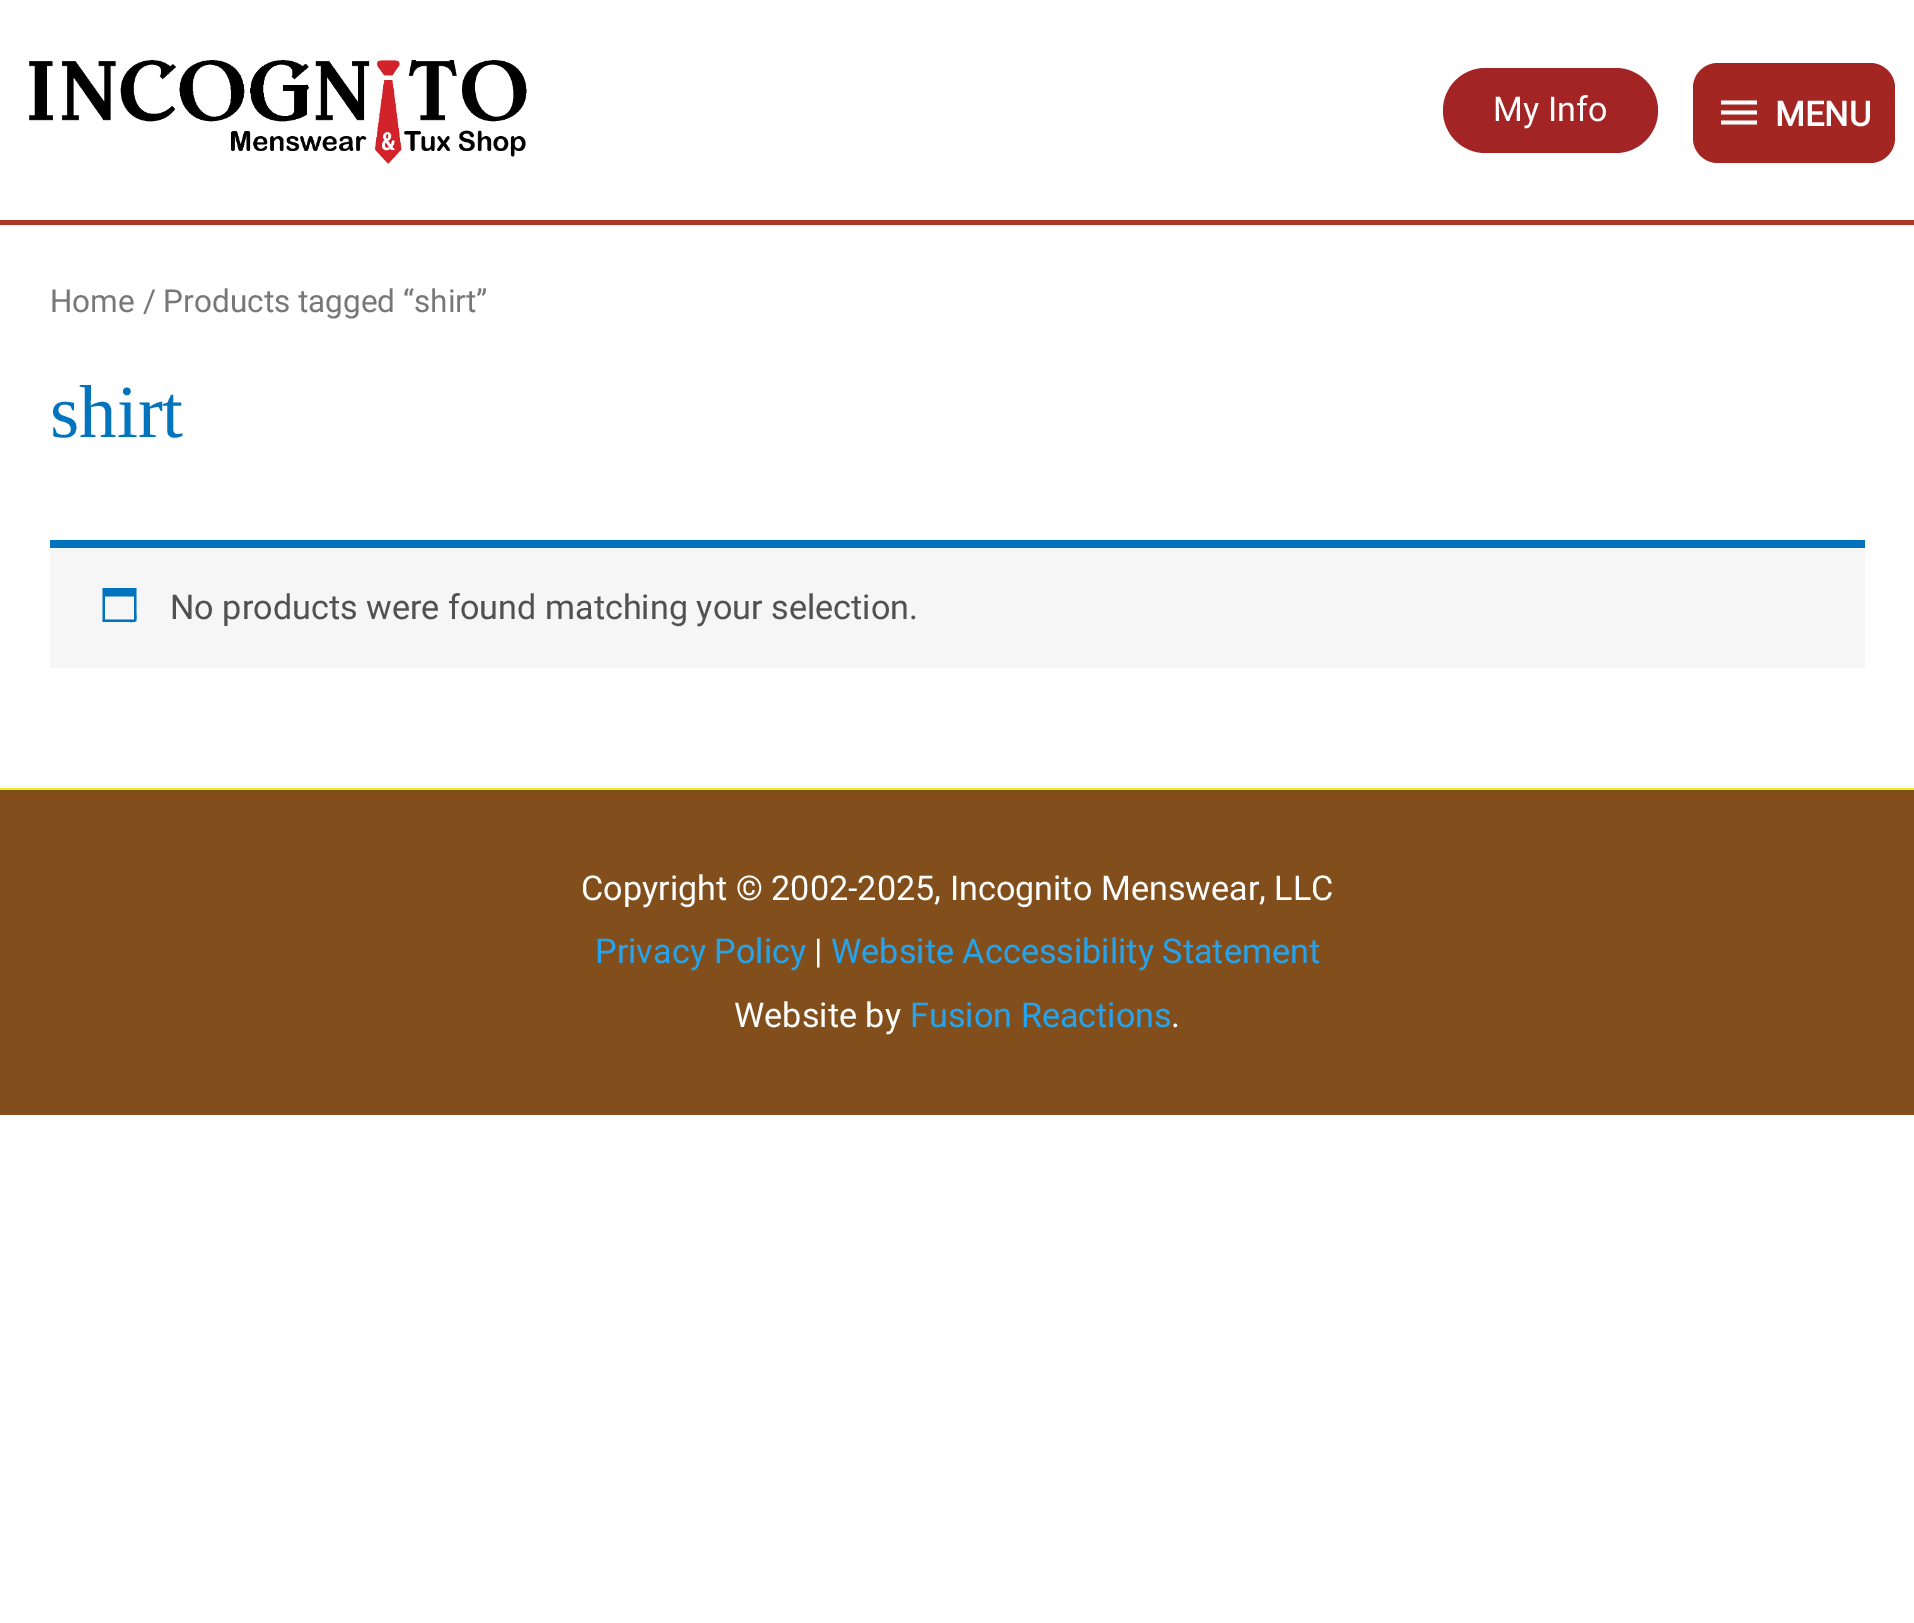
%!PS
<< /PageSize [1914 1623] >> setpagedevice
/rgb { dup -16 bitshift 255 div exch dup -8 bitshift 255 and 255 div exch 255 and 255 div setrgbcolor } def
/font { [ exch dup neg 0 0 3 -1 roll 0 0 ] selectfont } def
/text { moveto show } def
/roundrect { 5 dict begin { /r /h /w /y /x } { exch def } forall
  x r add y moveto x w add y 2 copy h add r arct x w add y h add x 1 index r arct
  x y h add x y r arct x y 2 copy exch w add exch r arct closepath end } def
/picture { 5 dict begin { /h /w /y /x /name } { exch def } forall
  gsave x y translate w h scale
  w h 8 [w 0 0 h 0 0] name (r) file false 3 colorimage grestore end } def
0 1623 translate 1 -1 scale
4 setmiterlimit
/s1 { /Roboto-Regular 34.2 font 16#FFFFFF rgb } def
/s2 { /Roboto-Bold 34.2 font 16#FFFFFF rgb } def
/s3 { /Roboto-Regular 31.5 font 16#777777 rgb } def
/s4 { /LiberationSerif-Regular 75 font 16#0274BE rgb } def
/s5 { /Roboto-Regular 34.2 font 16#515151 rgb } def
/s6 { /Roboto-Regular 34.2 font 16#25A4ED rgb } def
16#FFFFFF rgb
0 0 1914 1623 rectfill
16#AB3727 rgb
0 220 1914 5 rectfill
(pic1.raw) 29 60 498 104 picture
16#A22424 rgb
1443 68 215 85 42.5 roundrect fill
s1
(My Info) 1493 121 text
16#A32622 rgb
1693 63 202 100 25 roundrect fill
16#FFFFFF rgb
1721 100.5 moveto 1757 100.5 lineto 1757 104.5 lineto 1721 104.5 lineto closepath 1721 114.5 moveto 1721 110.5 lineto 1757 110.5 lineto 1757 114.5 lineto closepath 1721 124.5 moveto 1721 120.5 lineto 1757 120.5 lineto 1757 124.5 lineto closepath fill
s2
(MENU) 1775 126 text
s3
(Home / Products tagged “shirt”) 50 312 text
s4
(shirt) 50 437 text
16#F7F6F7 rgb
50 548 1815 120 rectfill
16#0274BE rgb
50 540 1815 8 rectfill
134 596.5 moveto 105 596.5 lineto 105 619.5 lineto 134 619.5 lineto closepath 136.5 588 moveto 136.5 614 lineto 136.5 622.5 137.5 622 129 622 curveto 102.5 622 lineto 102.5 588 lineto closepath fill
s5
(No products were found matching your selection.) 170 619 text
16#EEEE22 rgb
0 788 1914 2 rectfill
16#824F1C rgb
0 790 1914 325 rectfill
s1
(Copyright © 2002-2025, Incognito Menswear, LLC) 581 900 text
s6
(Privacy Policy) 595 963 text
s1
(|) 814 963 text
s6
(Website Accessibility Statement) 831 963 text
s1
(Website by) 734 1027 text
s6
(Fusion Reactions) 910 1027 text
s1
(.) 1171 1027 text
showpage
